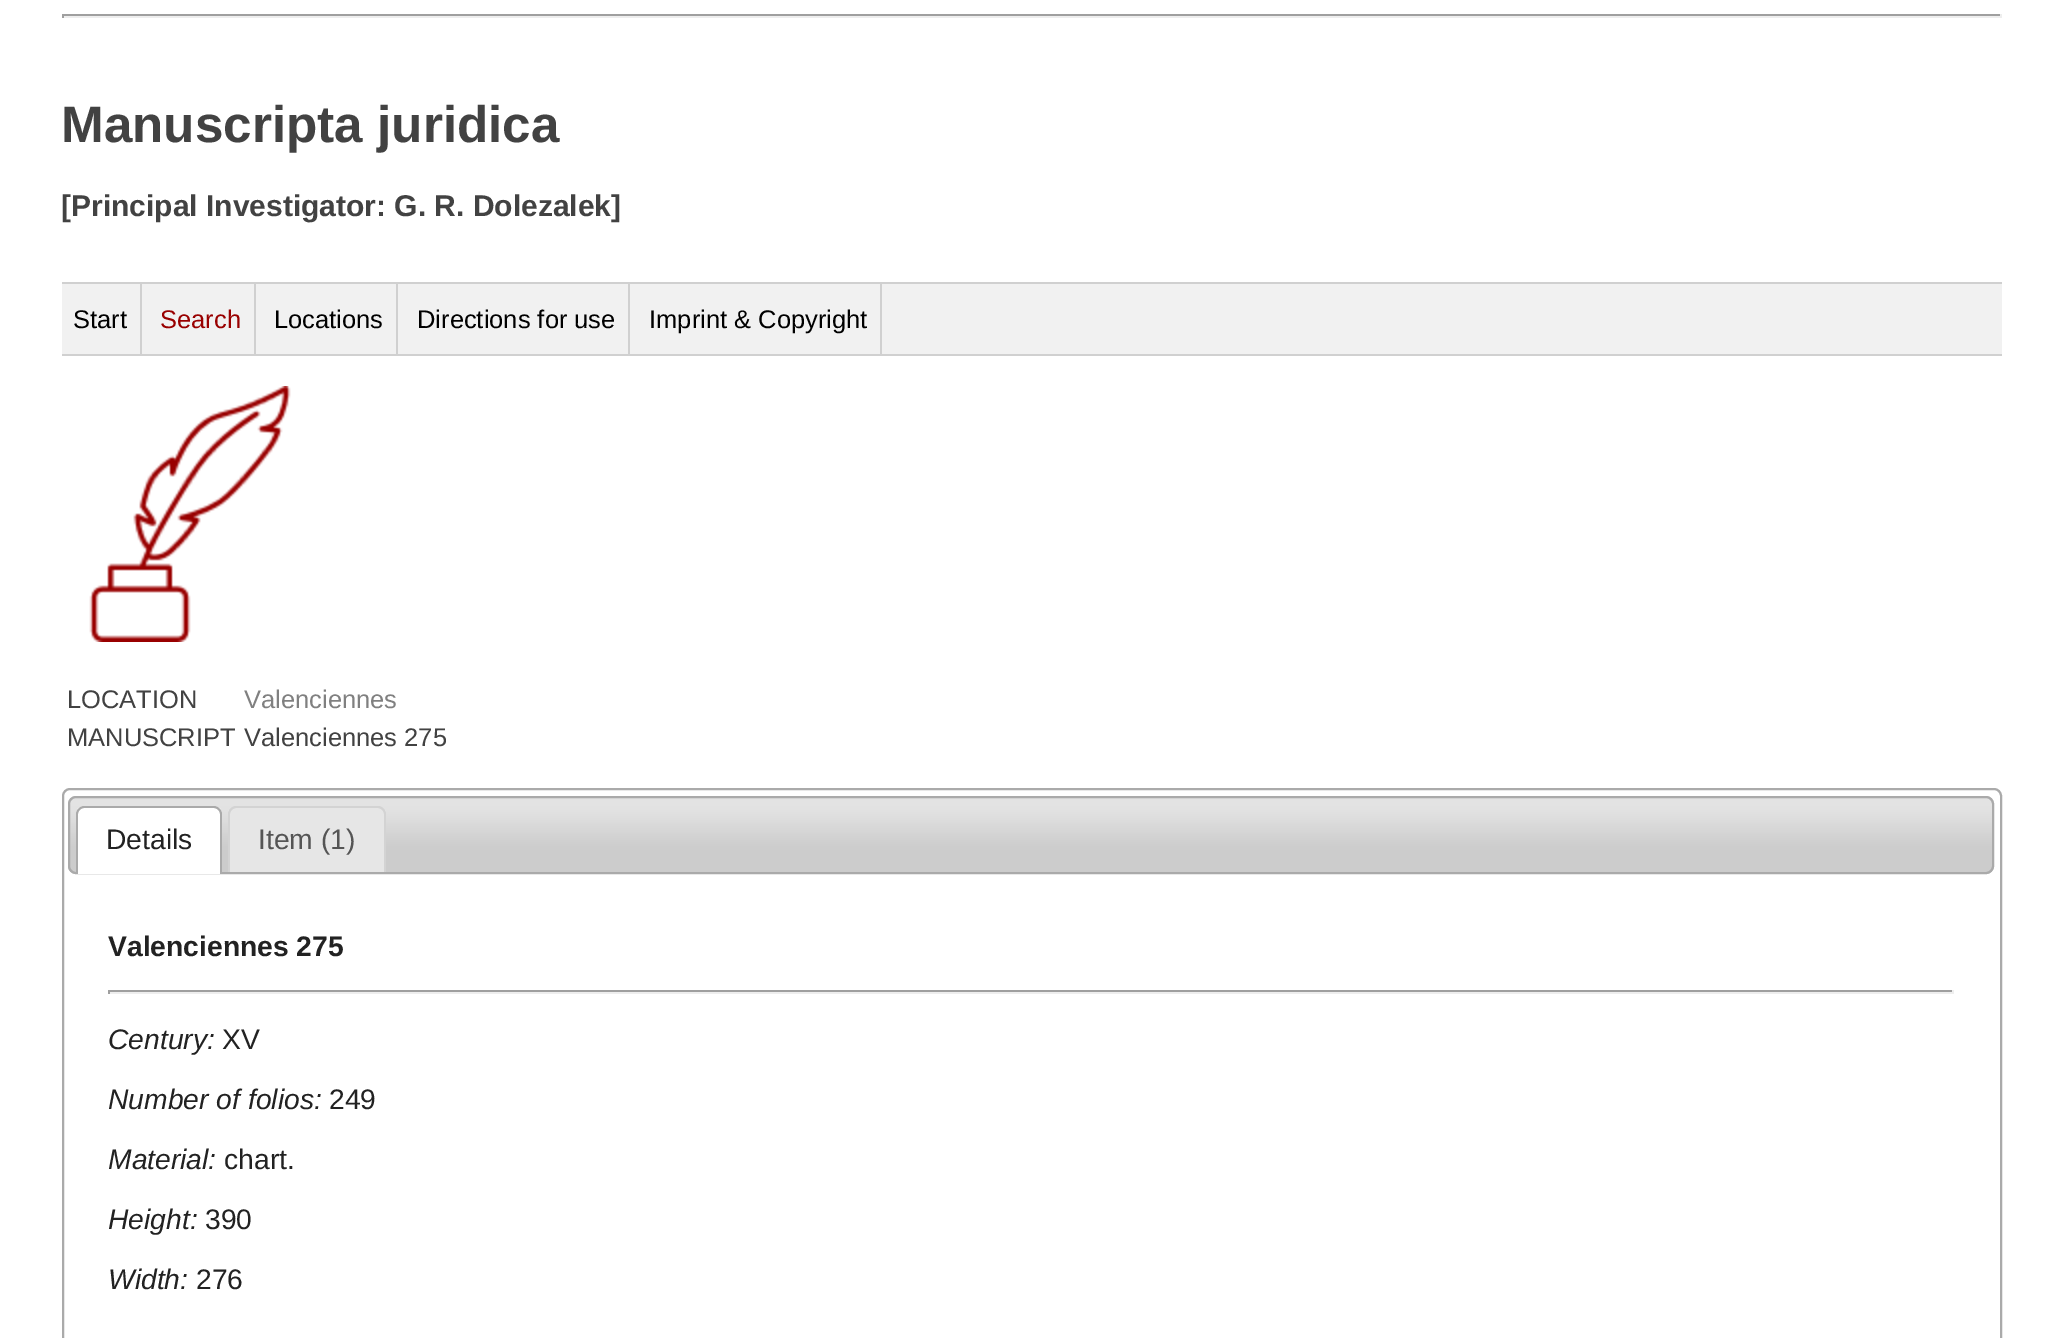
%!PS
<< /PageSize [2062 1338] >> setpagedevice
/rgb { dup -16 bitshift 255 div exch dup -8 bitshift 255 and 255 div exch 255 and 255 div setrgbcolor } def
/font { [ exch dup neg 0 0 3 -1 roll 0 0 ] selectfont } def
/text { moveto show } def
/roundrect { 5 dict begin { /r /h /w /y /x } { exch def } forall
  x r add y moveto x w add y 2 copy h add r arct x w add y h add x 1 index r arct
  x y h add x y r arct x y 2 copy exch w add exch r arct closepath end } def
/picture { 5 dict begin { /h /w /y /x /name } { exch def } forall
  gsave x y translate w h scale
  w h 8 [w 0 0 h 0 0] name (r) file false 3 colorimage grestore end } def
0 1338 translate 1 -1 scale
4 setmiterlimit
/s1 { /LiberationSans-Bold 51.25 font 16#424242 rgb } def
/s2 { /LiberationSans-Bold 30 font 16#424242 rgb } def
/s3 { /LiberationSans-Regular 25.5 font 16#000000 rgb } def
/s4 { /LiberationSans-Regular 25.5 font 16#990000 rgb } def
/s5 { /LiberationSans-Regular 25.5 font 16#424242 rgb } def
/s6 { /LiberationSans-Regular 25.5 font 16#808080 rgb } def
/s7 { /LiberationSans-Regular 28.25 font 16#222222 rgb } def
/s8 { /LiberationSans-Regular 28.25 font 16#555555 rgb } def
/s9 { /LiberationSans-Bold 28.25 font 16#222222 rgb } def
/s10 { /LiberationSans-Italic 28.25 font 16#222222 rgb } def
16#FFFFFF rgb
0 0 2062 1338 rectfill
16#9F9F9F rgb
62 14 1940 2 rectfill
16#EEEEEE rgb
2000 14 2 4 rectfill
62 16 1940 2 rectfill
16#9F9F9F rgb
62 14 2 4 rectfill
s1
(Manuscripta juridica) 61 142 text
s2
([Principal Investigator: G. R. Dolezalek]) 61 216 text
16#F1F1F1 rgb
62 284 1940 70 rectfill
16#D0D0D0 rgb
62 282 1940 2 rectfill
62 354 1940 2 rectfill
140 284 2 70 rectfill
s3
(Start) 73 328 text
16#D0D0D0 rgb
254 284 2 70 rectfill
s4
(Search) 160 328 text
16#D0D0D0 rgb
396 284 2 70 rectfill
s3
(Locations) 274 328 text
16#D0D0D0 rgb
628 284 2 70 rectfill
s3
(Directions for use) 417 328 text
16#D0D0D0 rgb
880 284 2 70 rectfill
s3
(Imprint & Copyright) 649 328 text
(pic1.raw) 89 386 202 256 picture
s5
(LOCATION) 67 708 text
s6
(Valenciennes) 244 708 text
s5
(MANUSCRIPT) 67 746 text
(Valenciennes 275) 244 746 text
16#AAAAAA rgb
2 setlinewidth
63 789 1938 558 7 roundrect stroke
(pic2.raw) 68 796 1926 78 picture
69 797 1924 76 7 roundrect stroke
(pic3.raw) 76 806 146 68 picture
84 806 moveto 214 806 lineto 218 806 222 810 222 814 curveto 222 874 lineto 76 874 lineto 76 814 lineto 76 810 80 806 84 806 curveto closepath 84 808 moveto 214 808 lineto 217 808 220 811 220 814 curveto 220 874 lineto 78 874 lineto 78 814 lineto 78 811 81 808 84 808 curveto closepath eofill
s7
(Details) 106 849 text
16#E6E6E6 rgb
236 808 moveto 378 808 lineto 381.5 808 384 810.5 384 814 curveto 384 872 lineto 230 872 lineto 230 814 lineto 230 810.5 232.5 808 236 808 curveto closepath fill
228 810 158 62 rectfill
16#D3D3D3 rgb
236 806 moveto 378 806 lineto 382 806 386 810 386 814 curveto 386 872 lineto 228 872 lineto 228 814 lineto 228 810 232 806 236 806 curveto closepath 236 808 moveto 378 808 lineto 381 808 384 811 384 814 curveto 384 872 lineto 230 872 lineto 230 814 lineto 230 811 233 808 236 808 curveto closepath eofill
s8
(Item \(1\)) 258 849 text
s9
(Valenciennes 275) 108 956 text
16#9F9F9F rgb
108 990 1846 2 rectfill
16#EEEEEE rgb
1952 990 2 4 rectfill
108 992 1846 2 rectfill
16#9F9F9F rgb
108 990 2 4 rectfill
s10
(Century:) 108 1049 text
s7
(XV) 222 1049 text
s10
(Number of folios:) 108 1109 text
s7
(249) 329 1109 text
s10
(Material:) 108 1169 text
s7
(chart.) 224 1169 text
s10
(Height:) 108 1229 text
s7
(390) 205 1229 text
s10
(Width:) 108 1289 text
s7
(276) 196 1289 text
showpage
